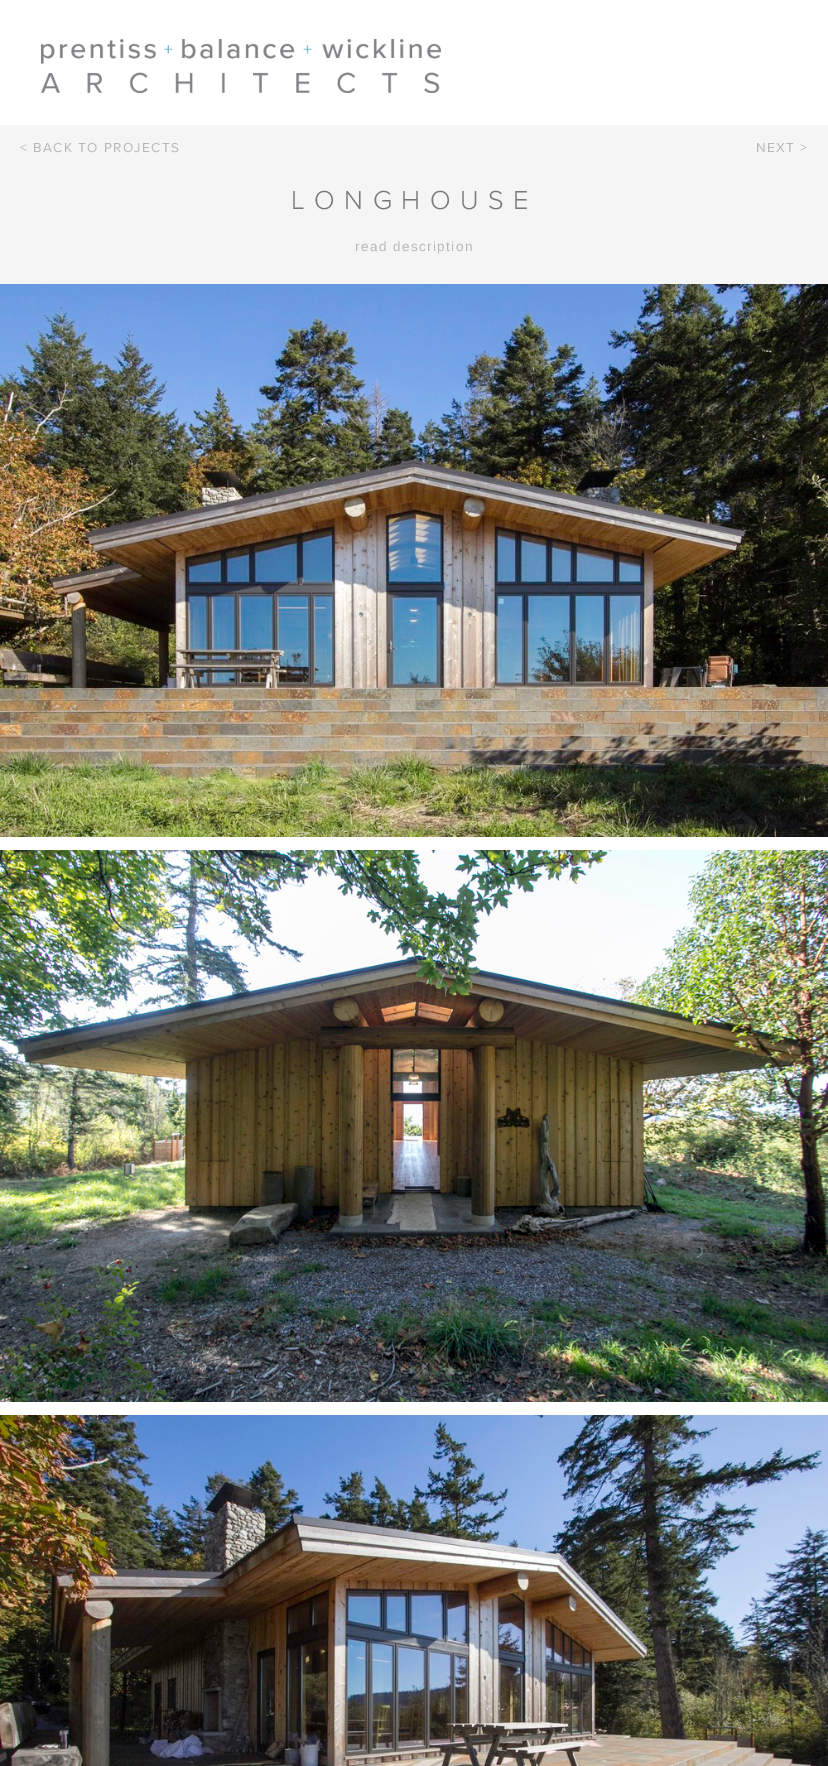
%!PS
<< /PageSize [828 1766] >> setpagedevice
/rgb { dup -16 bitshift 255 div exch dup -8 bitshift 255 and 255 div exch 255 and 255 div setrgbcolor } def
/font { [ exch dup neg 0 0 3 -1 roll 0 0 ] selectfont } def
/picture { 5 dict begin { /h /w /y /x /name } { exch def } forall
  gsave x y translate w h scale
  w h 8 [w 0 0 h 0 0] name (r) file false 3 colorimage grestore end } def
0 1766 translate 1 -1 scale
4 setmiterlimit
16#FFFFFF rgb
0 0 828 1766 rectfill
(pic1.raw) 41 39 400 54 picture
16#F5F5F5 rgb
0 125 828 159 rectfill
/ProximaNova-Regular 13.5 font
16#B7B7B7 rgb
20 152 moveto 1.4 0 (< BACK TO PROJECTS) ashow
756 152 moveto 1.4 0 (NEXT >) ashow
/ProximaNova-Light 27 font
16#787878 rgb
291 209 moveto 9.5 0 (LONGHOUSE) ashow
/LiberationSans-Regular 13.5 font
16#B7B7B7 rgb
355 251 moveto 1.4 0 (read description) ashow
(pic2.raw) 0 284 828 553 picture
(pic3.raw) 0 850 828 552 picture
(pic4.raw) 0 1415 828 351 picture
showpage
